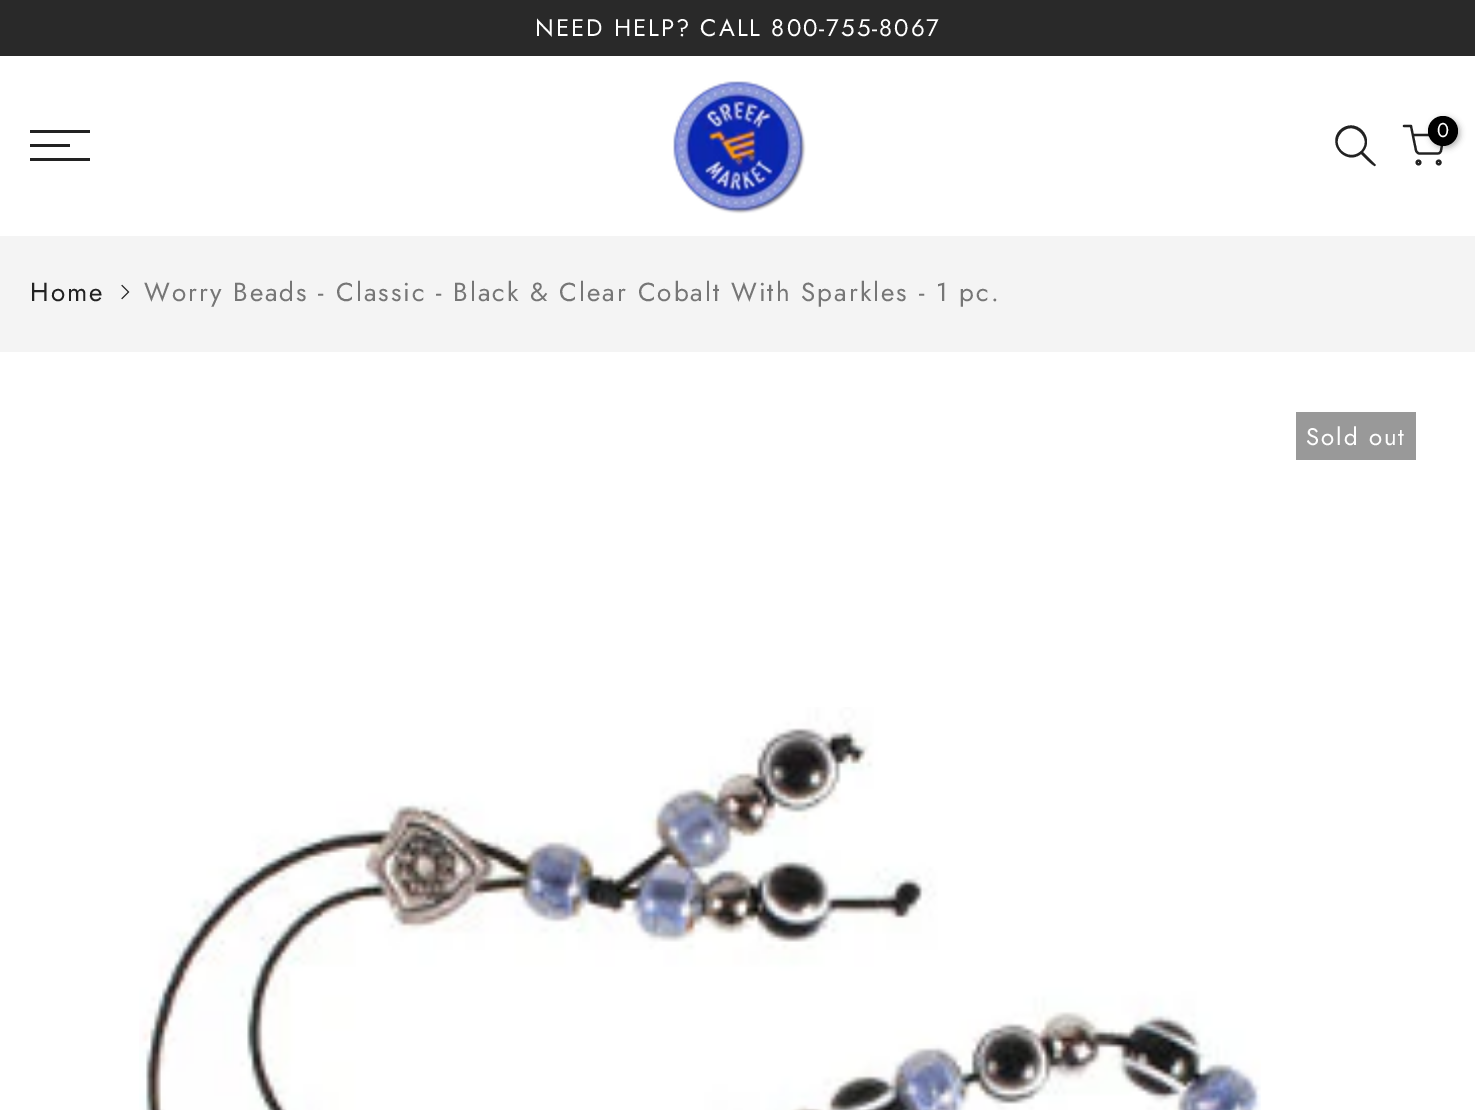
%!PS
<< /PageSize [1475 1110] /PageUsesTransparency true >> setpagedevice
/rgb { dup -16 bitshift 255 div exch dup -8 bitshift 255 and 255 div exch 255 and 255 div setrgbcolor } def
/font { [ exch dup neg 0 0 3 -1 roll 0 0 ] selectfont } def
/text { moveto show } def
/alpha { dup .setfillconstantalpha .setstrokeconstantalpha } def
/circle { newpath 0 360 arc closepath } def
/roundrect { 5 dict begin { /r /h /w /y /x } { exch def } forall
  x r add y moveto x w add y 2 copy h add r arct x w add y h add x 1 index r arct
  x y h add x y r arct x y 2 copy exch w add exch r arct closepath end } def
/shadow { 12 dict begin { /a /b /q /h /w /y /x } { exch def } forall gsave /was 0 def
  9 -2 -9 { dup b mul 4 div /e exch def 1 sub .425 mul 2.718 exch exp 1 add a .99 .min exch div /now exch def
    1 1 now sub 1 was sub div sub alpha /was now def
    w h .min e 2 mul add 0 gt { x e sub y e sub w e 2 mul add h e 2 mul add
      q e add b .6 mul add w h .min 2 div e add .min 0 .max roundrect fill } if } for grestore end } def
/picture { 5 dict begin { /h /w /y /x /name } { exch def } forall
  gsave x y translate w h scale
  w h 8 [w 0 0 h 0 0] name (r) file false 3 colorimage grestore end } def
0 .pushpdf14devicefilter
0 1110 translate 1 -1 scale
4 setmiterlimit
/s1 { /Jost-Regular 20 font 16#FFFFFF rgb } def
16#FFFFFF rgb
0 0 1475 1110 rectfill
16#292929 rgb
0 0 1475 56 rectfill
/Jost-Regular 24 font
16#FFFFFF rgb
535 36 moveto 2 0 (NEED HELP? CALL 800-755-8067) ashow
16#222222 rgb
30 130 60 3 rectfill
30 144 40 3 rectfill
30 158 60 3 rectfill
(pic1.raw) 673 81 133 133 picture
1361 151 moveto 1348 163 1329 145 1342 132 curveto 1354 120 1373 139 1361 151 curveto closepath 1361 154 moveto 1346 166 1326 144 1340 130 curveto 1355 116 1376 137 1363 152 curveto 1376 165 lineto 1375 166 lineto 1374 167 1363 156 1361 154 curveto closepath eofill
2.2 setlinewidth
1 setlinecap
1 setlinejoin
1404 126 moveto 1411 126 lineto 1416 150.5 lineto 1416.5 152 1418 153.5 1419.5 153.5 curveto 1437.5 153.5 lineto 1439.5 153.5 1441 152 1441 150.5 curveto 1444 135 lineto 1413 135 lineto stroke
16#000000 rgb
1430 118 30 30 15 3 0.3 shadow
1443 131 15 circle fill
s1
(0) 1437 137 text
16#222222 rgb
0 setlinecap
0 setlinejoin
1418.5 162.5 1.8 circle stroke
1438.7 162.5 1.8 circle stroke
16#F4F4F4 rgb
0 236 1475 116 rectfill
/Jost-Regular 26 font
16#222222 rgb
30 301 moveto 2 0 (Home) ashow
(pic2.raw) 121 284 9 16 picture
16#767676 rgb
144 301 moveto 2 0 (Worry Beads - Classic - Black & Clear Cobalt With Sparkles - 1 pc.) ashow
16#999999 rgb
1296 412 120 48 rectfill
/Jost-Regular 24 font
16#FFFFFF rgb
1306 445 moveto 2 0 (Sold out) ashow
(pic3.raw) 139 707 1122 403 picture
.poppdf14devicefilter showpage
